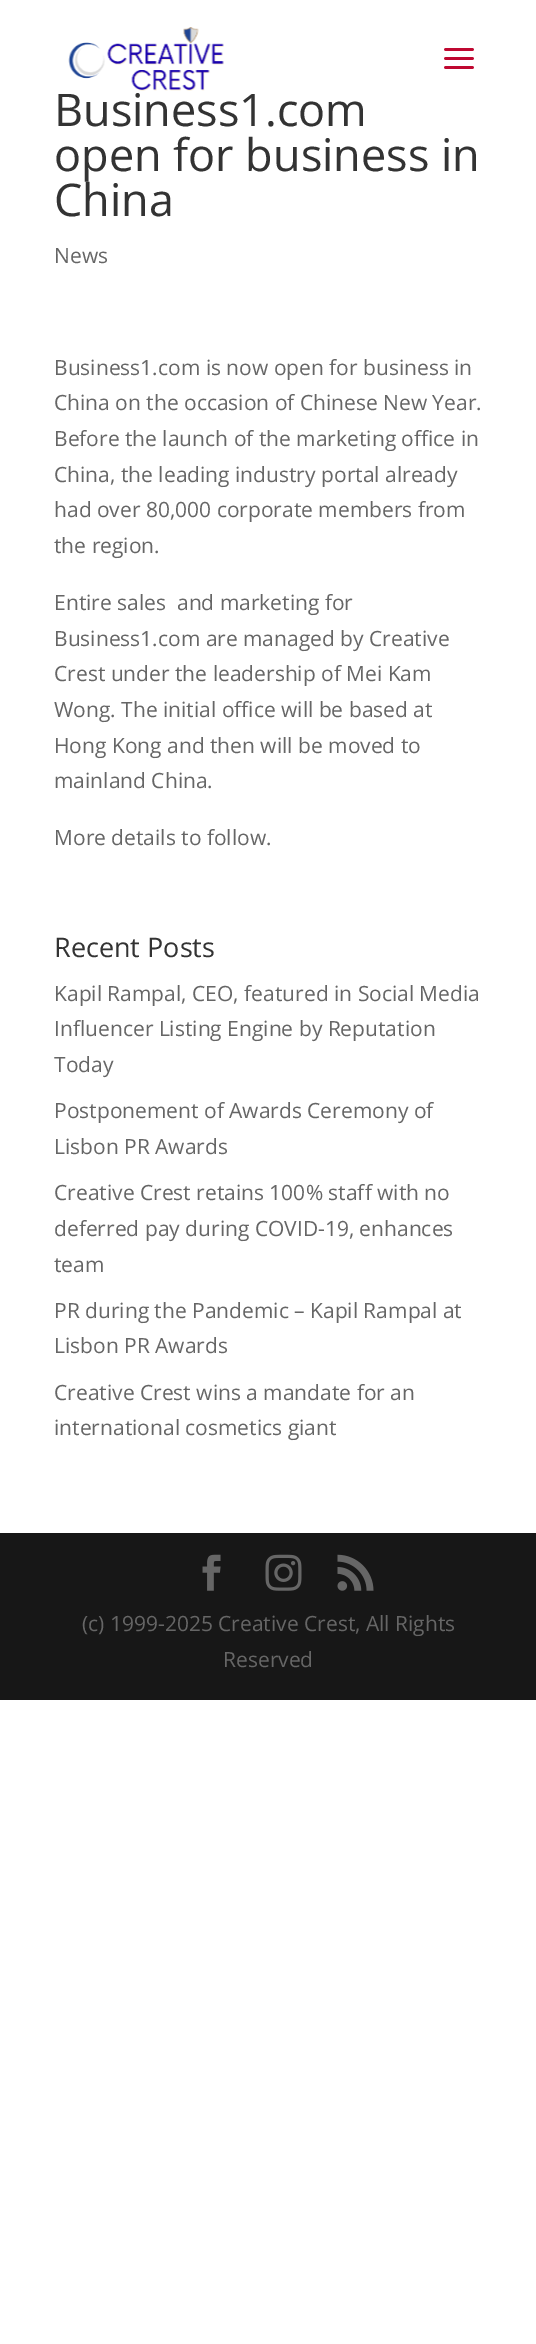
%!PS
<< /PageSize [536 2344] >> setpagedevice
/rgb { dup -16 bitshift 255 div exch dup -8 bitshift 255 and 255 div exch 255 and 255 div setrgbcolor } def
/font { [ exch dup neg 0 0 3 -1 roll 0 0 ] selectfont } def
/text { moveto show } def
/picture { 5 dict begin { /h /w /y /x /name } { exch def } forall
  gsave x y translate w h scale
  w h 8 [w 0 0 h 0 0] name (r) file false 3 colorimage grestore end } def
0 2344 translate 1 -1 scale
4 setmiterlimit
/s1 { /OpenSans-Regular 45 font 16#333333 rgb } def
/s2 { /OpenSans-Regular 21 font 16#666666 rgb } def
/s3 { /OpenSans-Regular 27 font 16#333333 rgb } def
16#FFFFFF rgb
0 0 536 2344 rectfill
(pic1.raw) 68 27 156 64 picture
(pic2.raw) 444 48 30 21 picture
s1
(Business1.com) 54 126 text
(open for business in) 54 171 text
(China) 54 216 text
s2
(News) 54 263 text
(Business1.com is now open for business in) 54 375 text
(China on the occasion of Chinese New Year.) 54 410 text
(Before the launch of the marketing office in) 54 446 text
(China, the leading industry portal already) 54 482 text
(had over 80,000 corporate members from) 54 517 text
(the region.) 54 553 text
(Entire sales  and marketing for) 54 610 text
(Business1.com are managed by Creative) 54 646 text
(Crest under the leadership of Mei Kam) 54 681 text
(Wong. The initial office will be based at) 54 717 text
(Hong Kong and then will be moved to) 54 753 text
(mainland China.) 54 788 text
(More details to follow.) 54 845 text
s3
(Recent Posts) 54 957 text
s2
(Kapil Rampal, CEO, featured in Social Media) 54 1001 text
(Influencer Listing Engine by Reputation) 54 1036 text
(Today) 54 1072 text
(Postponement of Awards Ceremony of) 54 1118 text
(Lisbon PR Awards) 54 1154 text
(Creative Crest retains 100% staff with no) 54 1200 text
(deferred pay during COVID-19, enhances) 54 1236 text
(team) 54 1272 text
(PR during the Pandemic – Kapil Rampal at) 54 1318 text
(Lisbon PR Awards) 54 1353 text
(Creative Crest wins a mandate for an) 54 1400 text
(international cosmetics giant) 54 1435 text
16#171717 rgb
0 1533 536 167 rectfill
(pic3.raw) 202 1554 19 37 picture
(pic4.raw) 265 1554 37 37 picture
(pic5.raw) 337 1554 37 37 picture
s2
(\(c\) 1999-2025 Creative Crest, All Rights) 82 1631 text
(Reserved) 223 1667 text
showpage
